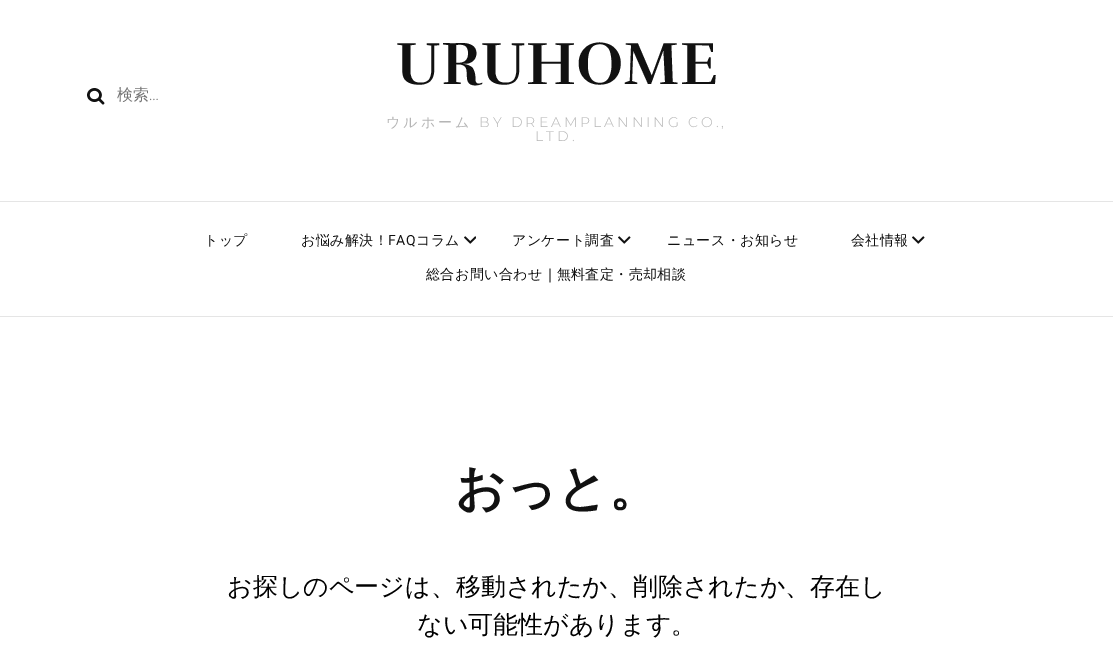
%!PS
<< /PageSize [1113 655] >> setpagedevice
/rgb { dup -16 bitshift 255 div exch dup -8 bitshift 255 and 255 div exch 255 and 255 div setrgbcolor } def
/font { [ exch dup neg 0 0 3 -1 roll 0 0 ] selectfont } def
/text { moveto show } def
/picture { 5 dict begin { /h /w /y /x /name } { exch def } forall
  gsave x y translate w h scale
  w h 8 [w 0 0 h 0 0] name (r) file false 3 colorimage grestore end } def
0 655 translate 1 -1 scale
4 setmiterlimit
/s1 { /WenQuanYiZenHei-Medium 16 font 16#757575 rgb } def
/s2 { /Montserrat-Light 16 font 16#757575 rgb } def
/s3 { /Rufina-Bold 61 font 16#111111 rgb } def
/s4 { /WenQuanYiZenHei-Bold 50 font 16#111111 rgb } def
/s5 { /WenQuanYiZenHei-Medium 25 font 16#000000 rgb } def
16#FFFFFF rgb
0 0 1113 655 rectfill
(pic1.raw) 87 88 18 17 picture
s1
(検索) 117 100 text
s2
(…) 149 100 text
s3
(URUHOME) 396 84 text
/WenQuanYiZenHei-Medium 14 font
16#B5B5B5 rgb
386 127 moveto 3 0 (ウルホーム) ashow
/Montserrat-Light 14 font
479 127 moveto 3 0 (BY DREAMPLANNING CO.,) ashow
535 141 moveto 3 0 (LTD.) ashow
16#E5E5E5 rgb
0 201 1113 1 rectfill
0 316 1113 1 rectfill
/WenQuanYiZenHei-Medium 14 font
16#111111 rgb
204 245 moveto 0.4 0 (トップ) ashow
301 245 moveto 0.4 0 (お悩み解決！) ashow
/Roboto-Regular 14 font
388 245 moveto 0.4 0 (FAQ) ashow
/WenQuanYiZenHei-Medium 14 font
416 245 moveto 0.4 0 (コラム) ashow
(pic2.raw) 464 236 12 8 picture
512 245 moveto 0.4 0 (アンケート調査) ashow
(pic3.raw) 618 236 13 8 picture
667 245 moveto 0.4 0 (ニュース・お知らせ) ashow
851 245 moveto 0.4 0 (会社情報) ashow
(pic3.raw) 912 236 13 8 picture
426 279 moveto 0.4 0 (総合お問い合わせ｜無料査定・売却相談) ashow
s4
(おっと。) 455 505 text
s5
(お探しのページは、移動されたか、削除されたか、存在し) 227 595 text
(ない可能性があります。) 417 633 text
showpage
